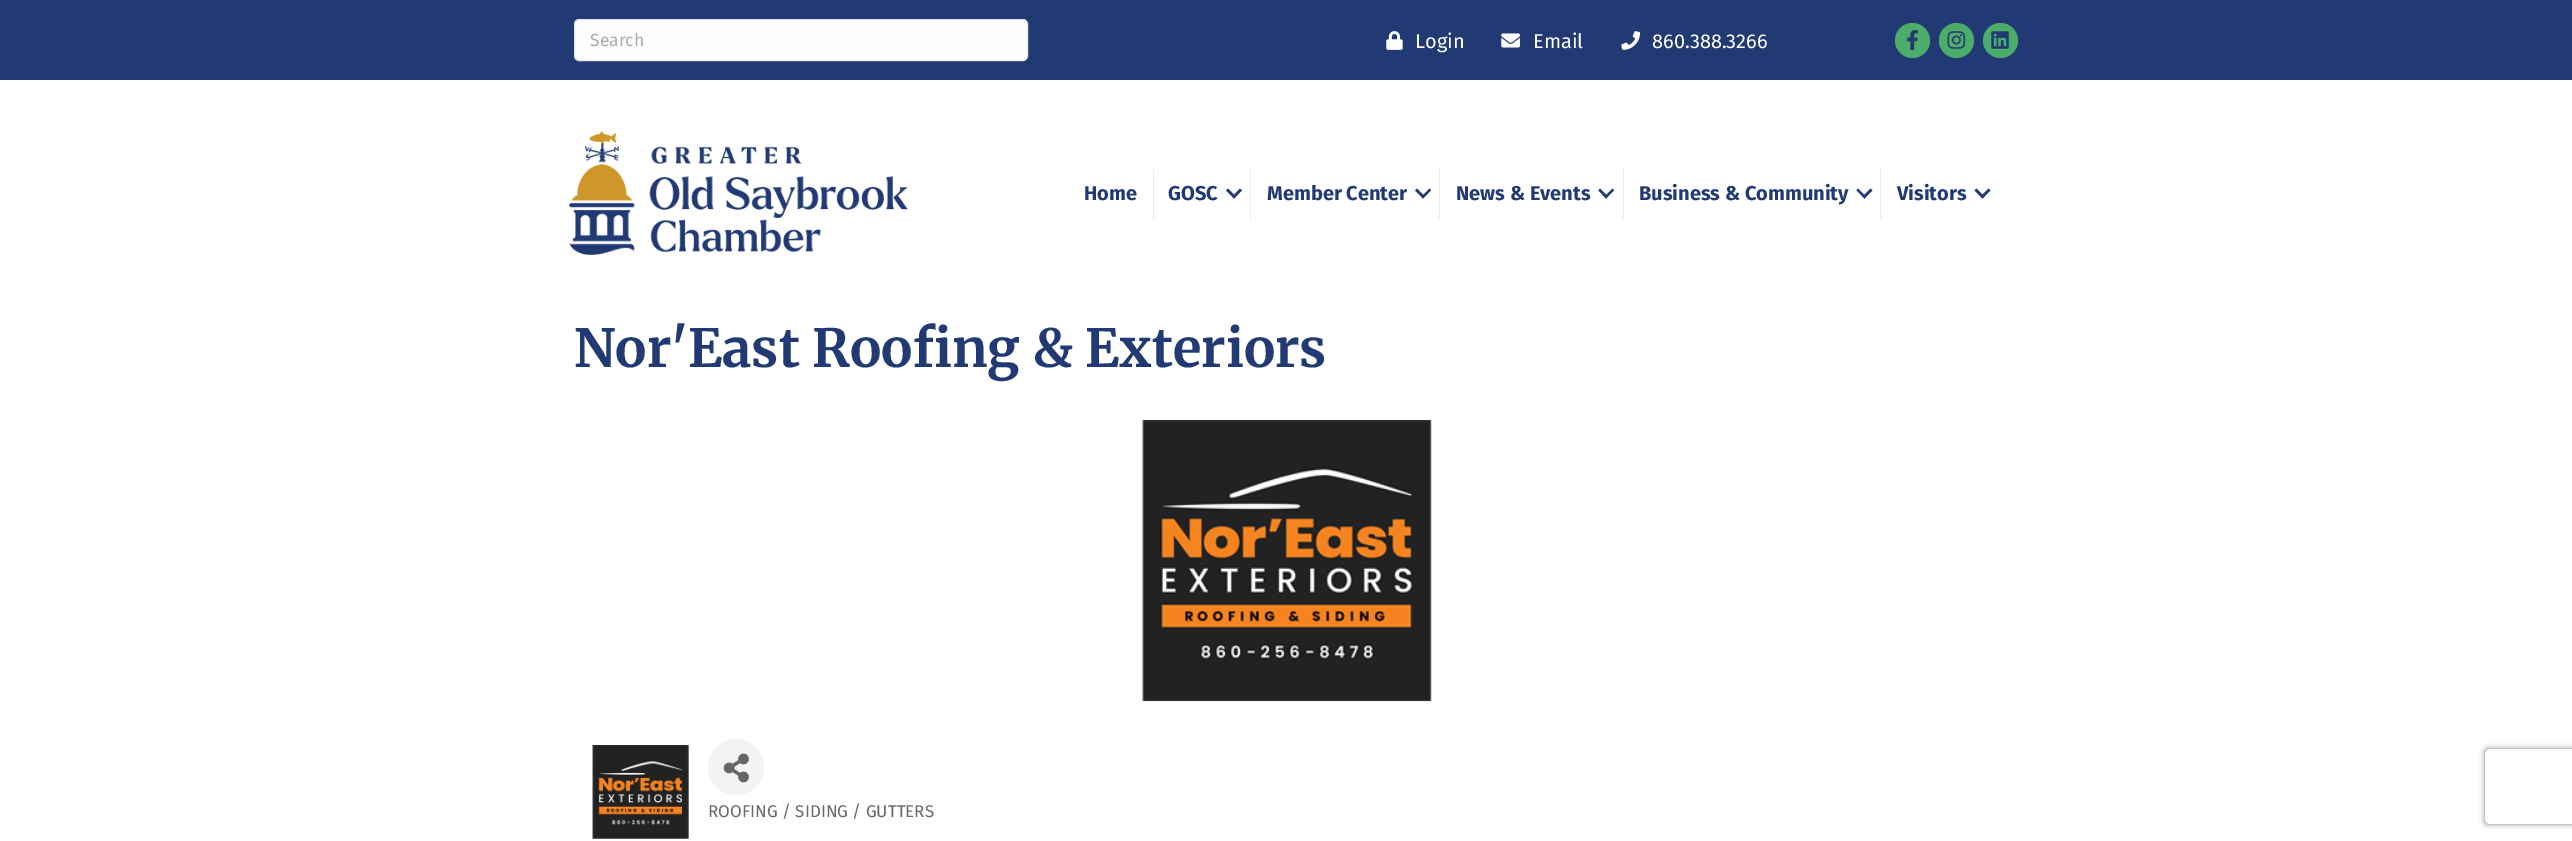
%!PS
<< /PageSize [2572 841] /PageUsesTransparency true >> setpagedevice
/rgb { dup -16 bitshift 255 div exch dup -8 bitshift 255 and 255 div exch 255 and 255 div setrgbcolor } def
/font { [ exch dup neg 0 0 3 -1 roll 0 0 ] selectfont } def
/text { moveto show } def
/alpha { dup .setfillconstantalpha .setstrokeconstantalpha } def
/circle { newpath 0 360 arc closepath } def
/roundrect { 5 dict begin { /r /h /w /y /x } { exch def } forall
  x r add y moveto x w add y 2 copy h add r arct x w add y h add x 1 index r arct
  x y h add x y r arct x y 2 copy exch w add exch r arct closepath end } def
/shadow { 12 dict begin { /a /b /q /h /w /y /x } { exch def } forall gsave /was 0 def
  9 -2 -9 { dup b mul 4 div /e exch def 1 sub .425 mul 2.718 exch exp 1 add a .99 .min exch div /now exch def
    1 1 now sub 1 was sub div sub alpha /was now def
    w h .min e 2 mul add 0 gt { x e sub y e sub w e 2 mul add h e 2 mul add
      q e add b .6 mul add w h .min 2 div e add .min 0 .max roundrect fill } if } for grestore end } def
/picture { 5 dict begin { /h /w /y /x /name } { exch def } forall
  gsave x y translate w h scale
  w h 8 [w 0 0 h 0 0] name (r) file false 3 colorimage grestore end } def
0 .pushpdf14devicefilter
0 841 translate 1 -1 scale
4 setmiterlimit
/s1 { /FiraSans-Regular 17.5 font 16#ACACAC rgb } def
/s2 { /FiraSans-Regular 20 font 16#FFFFFF rgb } def
/s3 { /FiraSans-Bold 20 font 16#223A73 rgb } def
/s4 { /Merriweather-Light 52.5 font 16#223A73 rgb } def
/s5 { /FiraSans-Regular 17 font 16#696969 rgb } def
16#223A73 rgb
0 0 2572 841 rectfill
16#FCFCFC rgb
574.5 19.5 453 41 4.5 roundrect gsave fill grestore
16#E6E6E6 rgb
stroke
s1
(Search) 590 46 text
(pic1.raw) 1386 31 17 19 picture
s2
(Login) 1415 48 text
(pic2.raw) 1501 33 19 15 picture
(Email) 1533 48 text
(pic3.raw) 1621 31 19 19 picture
(860.388.3266) 1652 48 text
16#4CAC69 rgb
1912.5 40.5 17.5 circle fill
(pic4.raw) 1907 30 11 20 picture
1956.5 40.5 17.5 circle fill
(pic5.raw) 1947 31 19 18 picture
2000.5 40.5 17.5 circle fill
(pic6.raw) 1991 31 18 18 picture
16#FFFFFF rgb
0 80 2572 761 rectfill
(pic7.raw) 568 131 340 124 picture
s3
(Home) 1084 200 text
16#EBEBEB rgb
1153 169 1 50 rectfill
s3
(GOSC) 1168 200 text
1240 188.5 moveto 1242 190.5 lineto 1234 198.5 lineto 1232.5 196.5 lineto closepath fill
1228 188.5 moveto 1236 196.5 lineto 1234 198.5 lineto 1226 190.5 lineto closepath fill
16#EBEBEB rgb
1250 169 1 50 rectfill
s3
(Member Center) 1267 200 text
1429.5 188.5 moveto 1431 190.5 lineto 1423 198.5 lineto 1421.5 196.5 lineto closepath fill
1417 188.5 moveto 1425 196.5 lineto 1423 198.5 lineto 1415 190.5 lineto closepath fill
16#EBEBEB rgb
1439 169 1 50 rectfill
s3
(News & Events) 1456 200 text
1612.5 188.5 moveto 1614 190.5 lineto 1606 198.5 lineto 1604.5 196.5 lineto closepath fill
1600 188.5 moveto 1608 196.5 lineto 1606 198.5 lineto 1598.5 190.5 lineto closepath fill
16#EBEBEB rgb
1623 169 1 50 rectfill
s3
(Business & Community) 1639 200 text
1870.5 188.5 moveto 1872.5 190.5 lineto 1864.5 198.5 lineto 1862.5 196.5 lineto closepath fill
1858 188.5 moveto 1866 196.5 lineto 1864.5 198.5 lineto 1856.5 190.5 lineto closepath fill
16#EBEBEB rgb
1880 169 1 50 rectfill
s3
(Visitors) 1897 200 text
1988.5 188.5 moveto 1990.5 190.5 lineto 1982.5 198.5 lineto 1980.5 196.5 lineto closepath fill
1976.5 188.5 moveto 1984.5 196.5 lineto 1982.5 198.5 lineto 1974.5 190.5 lineto closepath fill
s4
(Nor'East Roofing & Exteriors) 574 367 text
(pic8.raw) 1142 420 290 282 picture
(pic9.raw) 592 745 97 94 picture
16#F3F3F3 rgb
736 767 28 circle fill
(pic10.raw) 723 753 26 30 picture
s5
(ROOFING / SIDING / GUTTERS) 708 817 text
gsave
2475 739 moveto 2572 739 lineto 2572 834 lineto 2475 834 lineto closepath 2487.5 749 moveto 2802.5 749 lineto 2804 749 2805 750 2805 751.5 curveto 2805 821.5 lineto 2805 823 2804 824 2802.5 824 curveto 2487.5 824 lineto 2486 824 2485 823 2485 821.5 curveto 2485 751.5 lineto 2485 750 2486 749 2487.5 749 curveto closepath eoclip newpath
16#808080 rgb
2485 749 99 75 2.5 3 1 shadow
grestore
.poppdf14devicefilter showpage
